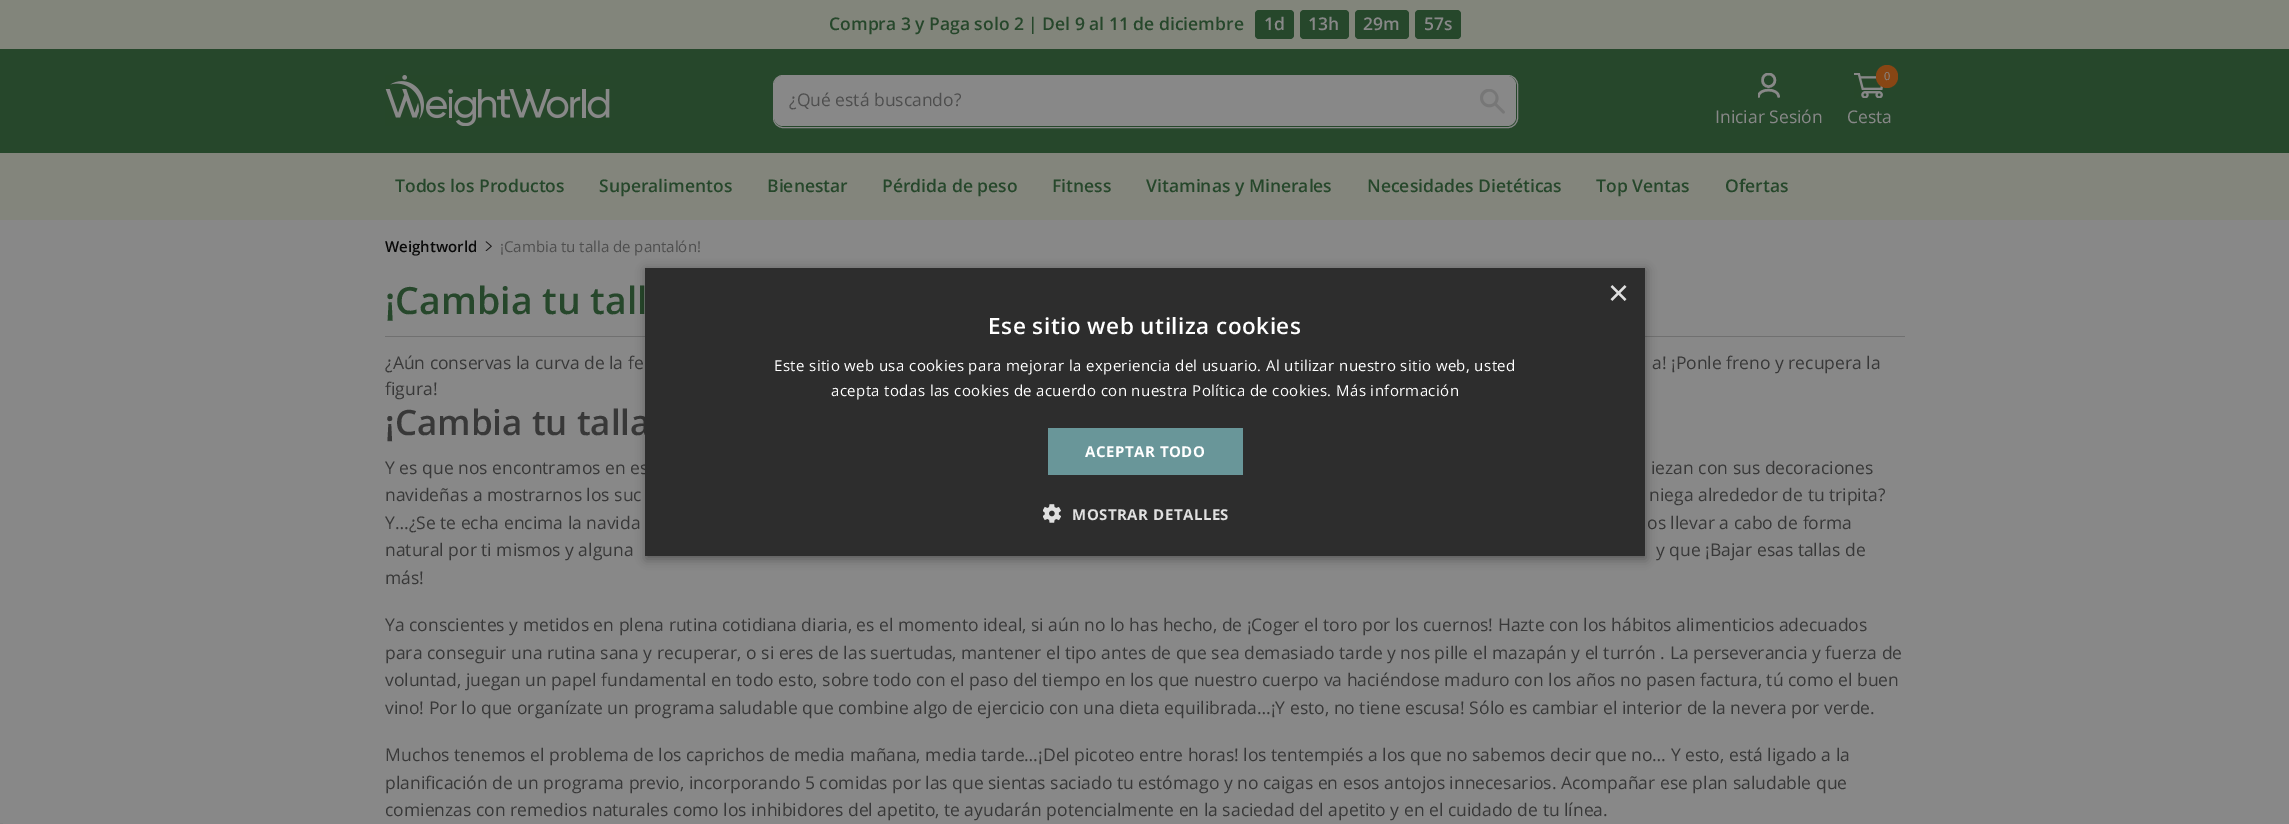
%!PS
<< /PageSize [2289 824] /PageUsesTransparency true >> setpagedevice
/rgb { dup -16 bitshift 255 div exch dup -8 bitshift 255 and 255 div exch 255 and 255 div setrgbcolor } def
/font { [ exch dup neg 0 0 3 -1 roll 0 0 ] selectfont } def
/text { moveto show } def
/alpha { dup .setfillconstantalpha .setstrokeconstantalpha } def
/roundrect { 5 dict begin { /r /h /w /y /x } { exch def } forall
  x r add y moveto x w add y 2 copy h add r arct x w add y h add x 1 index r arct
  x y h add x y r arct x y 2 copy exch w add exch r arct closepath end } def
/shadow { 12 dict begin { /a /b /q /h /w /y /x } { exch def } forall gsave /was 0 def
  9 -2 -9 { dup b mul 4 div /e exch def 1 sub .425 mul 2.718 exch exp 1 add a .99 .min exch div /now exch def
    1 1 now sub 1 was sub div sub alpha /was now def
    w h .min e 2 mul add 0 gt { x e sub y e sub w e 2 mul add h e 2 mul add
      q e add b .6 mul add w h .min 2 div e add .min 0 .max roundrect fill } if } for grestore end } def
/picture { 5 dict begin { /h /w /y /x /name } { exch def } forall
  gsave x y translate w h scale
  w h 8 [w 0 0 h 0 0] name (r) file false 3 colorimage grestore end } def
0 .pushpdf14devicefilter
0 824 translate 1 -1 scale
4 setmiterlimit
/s1 { /OpenSans-SemiBold 17.5 font 16#26472B rgb } def
/s2 { /OpenSans-SemiBold 17.5 font 16#888888 rgb } def
/s3 { /OpenSans-Regular 17.5 font 16#4E4E4E rgb } def
/s4 { /OpenSans-Regular 17.5 font 16#888888 rgb } def
/s5 { /OpenSans-Regular 11 font 16#888888 rgb } def
/s6 { /OpenSans-SemiBold 15 font 16#090909 rgb } def
/s7 { /OpenSans-Regular 15 font 16#4E4E4E rgb } def
/s8 { /OpenSans-SemiBold 37.5 font 16#26472B rgb } def
/s9 { /OpenSans-Regular 17.5 font 16#383838 rgb } def
/s10 { /OpenSans-SemiBold 35 font 16#383838 rgb } def
/s11 { /LiberationSans-Regular 36 font 16#E0E0E0 rgb } def
16#888888 rgb
0 0 2289 824 rectfill
16#82857B rgb
0 0 2289 49 rectfill
s1
(Compra 3 y Paga solo 2 | Del 9 al 11 de diciembre) 829 30 text
1255 10 39 29 4 roundrect fill
s2
(1d) 1264 30 text
16#26472B rgb
1300 10 49 29 4 roundrect fill
s2
(13h) 1308 30 text
16#26472B rgb
1355 10 54 29 4 roundrect fill
s2
(29m) 1363 30 text
16#26472B rgb
1415 10 46 29 4 roundrect fill
s2
(57s) 1424 30 text
16#26472B rgb
0 49 2289 104 rectfill
(pic1.raw) 385 75 225 51 picture
16#888888 rgb
774 76 742 50 9 roundrect fill
773.5 75.5 744 52 9.5 roundrect stroke
s3
(¿Qué está buscando?) 789 106 text
(pic2.raw) 1480 89 25 25 picture
gsave
1758 73 22 25 rectclip
16#888888 rgb
2.5 setlinewidth
1 setlinecap
1 setlinejoin
1778.5 96.5 moveto 1778.5 88 1758.5 88 1758.5 96.5 curveto 1768.5 86.5 moveto 1760.5 86.5 1760.5 74 1768.5 74 curveto 1777 74 1777 86.5 1768.5 86.5 curveto closepath stroke
grestore
s4
(Iniciar Sesión) 1715 123 text
(pic3.raw) 1854 73 29 25 picture
16#884614 rgb
1876 65 22 23 11 roundrect fill
s5
(0) 1884 80 text
s4
(Cesta) 1847 123 text
16#83857C rgb
0 153 2289 67 rectfill
s1
(Todos los Productos) 395 192 text
(Superalimentos) 599 192 text
(Bienestar) 767 192 text
(Pérdida de peso) 882 192 text
(Fitness) 1052 192 text
(Vitaminas y Minerales) 1146 192 text
(Necesidades Dietéticas) 1367 192 text
(Top Ventas) 1596 192 text
(Ofertas) 1725 192 text
s6
(Weightworld) 385 252 text
(pic4.raw) 485 241 7 10 picture
s7
(¡Cambia tu talla de pantalón!) 500 252 text
16#707070 rgb
385 336 1520 1 rectfill
s8
(¡Cambia tu tall) 385 314 text
s9
(¿Aún conservas la curva de la fe) 385 369 text
(a! ¡Ponle freno y recupera la) 1652 369 text
(figura!) 385 395 text
s10
(¡Cambia tu talla) 385 435 text
s9
(Y es que nos encontramos en es) 385 474 text
(iezan con sus decoraciones) 1651 474 text
(navideñas a mostrarnos los suc) 385 501 text
(niega alrededor de tu tripita?) 1649 501 text
(Y…¿Se te echa encima la navida) 385 529 text
(os llevar a cabo de forma) 1647 529 text
(natural por ti mismos y alguna) 385 556 text
(y que ¡Bajar esas tallas de) 1656 556 text
(más!) 385 584 text
(Ya conscientes y metidos en plena rutina cotidiana diaria, es el momento ideal, si aún no lo has hecho, de ¡Coger el toro por los cuernos! Hazte con los hábitos alimenticios adecuados) 385 631 text
(para conseguir una rutina sana y recuperar, o si eres de las suertudas, mantener el tipo antes de que sea demasiado tarde y nos pille el mazapán y el turrón . La perseverancia y fuerza de) 385 659 text
(voluntad, juegan un papel fundamental en todo esto, sobre todo con el paso del tiempo en los que nuestro cuerpo va haciéndose maduro con los años no pasen factura, tú como el buen) 385 686 text
(vino! Por lo que organízate un programa saludable que combine algo de ejercicio con una dieta equilibrada…¡Y esto, no tiene escusa! Sólo es cambiar el interior de la nevera por verde.) 385 714 text
(Muchos tenemos el problema de los caprichos de media mañana, media tarde…¡Del picoteo entre horas! los tentempiés a los que no sabemos decir que no… Y esto, está ligado a la) 385 761 text
(planificación de un programa previo, incorporando 5 comidas por las que sientas saciado tu estómago y no caigas en esos antojos innecesarios. Acompañar ese plan saludable que) 385 789 text
(comienzas con remedios naturales como los inhibidores del apetito, te ayudarán potencialmente en la saciedad del apetito y en el cuidado de tu línea.) 385 816 text
16#000000 rgb
646 270 1000 289 0 5 0.35 shadow
16#2D2D2D rgb
645 268 1000 288 rectfill
s11
(×) 1608 305 text
/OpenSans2-SemiBold 22.5 font
16#FFFFFF rgb
988 334 moveto 0.5 0 (Ese sitio web utiliza cookies) ashow
/OpenSans2-Regular 15 font
774 371 moveto 0.38 0 (Este sitio web usa cookies para mejorar la experiencia del usuario. Al utilizar nuestro sitio web, usted) ashow
831 396 moveto 0.38 0 (acepta todas las cookies de acuerdo con nuestra Política de cookies. Más información) ashow
16#699699 rgb
1048 428 195 47 rectfill
/OpenSans-Bold 15 font
16#FFFFFF rgb
1085 457 moveto 0.5 0 (ACEPTAR TODO) ashow
(pic5.raw) 1043 504 18 19 picture
16#E0E0E0 rgb
1072 520 moveto 0.5 0 (MOSTRAR DETALLES) ashow
16#838383 rgb
0 823 3 1 rectfill
.poppdf14devicefilter showpage
